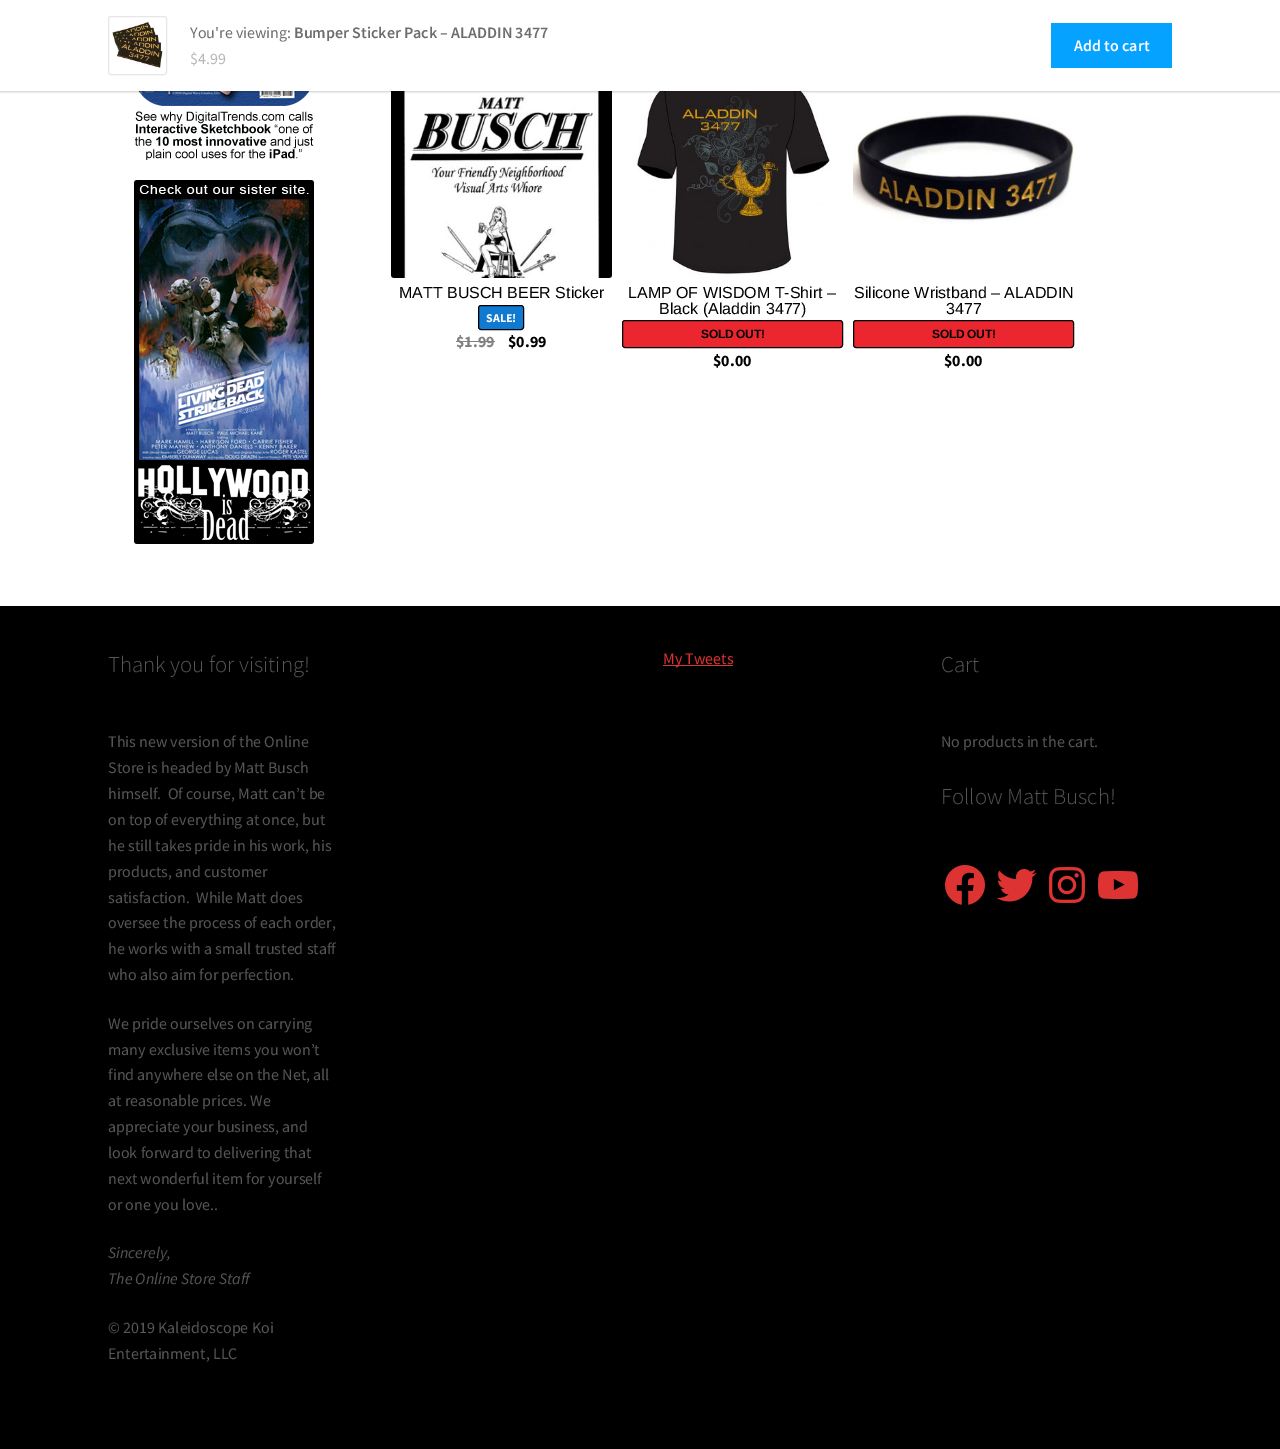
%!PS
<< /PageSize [1280 1449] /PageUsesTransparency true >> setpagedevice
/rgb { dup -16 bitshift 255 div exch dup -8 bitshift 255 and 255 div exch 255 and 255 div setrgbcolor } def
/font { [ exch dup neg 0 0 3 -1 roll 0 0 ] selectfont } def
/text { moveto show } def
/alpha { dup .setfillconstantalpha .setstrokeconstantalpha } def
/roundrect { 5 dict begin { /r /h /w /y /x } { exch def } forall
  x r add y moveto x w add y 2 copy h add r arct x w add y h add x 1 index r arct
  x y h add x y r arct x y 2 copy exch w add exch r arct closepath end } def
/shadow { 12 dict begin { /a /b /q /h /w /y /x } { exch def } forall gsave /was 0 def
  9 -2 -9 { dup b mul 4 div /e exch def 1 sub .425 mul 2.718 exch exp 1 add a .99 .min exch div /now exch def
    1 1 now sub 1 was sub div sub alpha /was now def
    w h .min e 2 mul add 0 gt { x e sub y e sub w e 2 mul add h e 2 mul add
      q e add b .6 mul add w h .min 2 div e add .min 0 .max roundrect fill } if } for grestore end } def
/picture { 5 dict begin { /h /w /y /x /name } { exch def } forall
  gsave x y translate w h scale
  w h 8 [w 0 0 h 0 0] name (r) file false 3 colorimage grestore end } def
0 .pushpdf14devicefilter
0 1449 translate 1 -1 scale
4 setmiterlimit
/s1 { /SourceSansPro-Regular 16 font 16#6D6D6D rgb } def
/s2 { /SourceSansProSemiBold-SemiBold 16 font 16#6D6D6D rgb } def
/s3 { /SourceSansPro-Regular 16 font 16#B6B6B6 rgb } def
/s4 { /SourceSansProSemiBold-SemiBold 16 font 16#FFFFFF rgb } def
/s5 { /LiberationSans-Regular 16 font 16#000000 rgb } def
/s6 { /SourceSansPro-Bold 12 font 16#FFFFFF rgb } def
/s7 { /SourceSansPro-Bold 16 font 16#808080 rgb } def
/s8 { /SourceSansPro-Bold 16 font 16#000000 rgb } def
/s9 { /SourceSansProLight-Light 22.75 font 16#565656 rgb } def
/s10 { /SourceSansPro-Regular 16 font 16#565656 rgb } def
/s11 { /SourceSansPro-Italic 16 font 16#565656 rgb } def
/s12 { /SourceSansPro-Regular 16 font 16#DD3333 rgb } def
16#FFFFFF rgb
0 0 1280 1449 rectfill
(pic2.raw) 135 91 179 69 picture
(pic4.raw) 391 91 221 187 picture
(pic5.raw) 633 91 197 184 picture
16#000000 rgb
0 1 1280 91 0 1 0.2 shadow
16#FFFFFF rgb
0 0 1280 91 rectfill
16#E6E6E6 rgb
108.5 16.5 58 58 2.5 roundrect stroke
(pic1.raw) 112 21 51 47 picture
s1
(You're viewing:) 190 38 text
s2
(Bumper Sticker Pack – ALADDIN 3477) 294 38 text
s3
($4.99) 190 64 text
16#05A3FF rgb
1051 23 121 45 rectfill
s4
(Add to cart) 1074 51 text
(pic3.raw) 134 180 180 364 picture
s5
(MATT BUSCH BEER Sticker) 399 298 text
16#107AD1 rgb
478.5 305.5 45 24 2.5 roundrect gsave fill grestore
16#000000 rgb
stroke
s6
(SALE!) 486 322 text
s7
($1.99) 456 347 text
456 341 39 1 rectfill
s8
($0.99) 508 347 text
s5
(LAMP OF WISDOM T-Shirt –) 628 298 text
(Black \(Aladdin 3477\)) 659 314 text
16#EB262E rgb
622.5 320.5 220 27 2.5 roundrect gsave fill grestore
16#000000 rgb
stroke
/LiberationSans-Bold 12 font
701 338 moveto -0.25 0 (SOLD OUT!) ashow
s8
($0.00) 713 366 text
(pic6.raw) 853 112 221 112 picture
s5
(Silicone Wristband – ALADDIN) 854 298 text
(3477) 946 314 text
16#EB262E rgb
853.5 320.5 220 27 2.5 roundrect gsave fill grestore
16#000000 rgb
stroke
/LiberationSans-Bold 12 font
932 338 moveto -0.25 0 (SOLD OUT!) ashow
s8
($0.00) 944 366 text
0 606 1280 843 rectfill
s9
(Thank you for visiting!) 108 672 text
s10
(This new version of the Online) 108 747 text
(Store is headed by Matt Busch) 108 773 text
(himself.  Of course, Matt can’t be) 108 799 text
(on top of everything at once, but) 108 825 text
(he still takes pride in his work, his) 108 851 text
(products, and customer) 108 877 text
(satisfaction.  While Matt does) 108 903 text
(oversee the process of each order,) 108 928 text
(he works with a small trusted staff) 108 954 text
(who also aim for perfection.) 108 980 text
(We pride ourselves on carrying) 108 1029 text
(many exclusive items you won’t) 108 1055 text
(find anywhere else on the Net, all) 108 1080 text
(at reasonable prices. We) 108 1106 text
(appreciate your business, and) 108 1132 text
(look forward to delivering that) 108 1158 text
(next wonderful item for yourself) 108 1184 text
(or one you love..) 108 1210 text
s11
(Sincerely,) 108 1258 text
(The Online Store Staff) 108 1284 text
s10
(© 2019 Kaleidoscope Koi) 108 1333 text
(Entertainment, LLC) 108 1359 text
16#DD3333 rgb
663 665 70 1 rectfill
(My Tweets) 663 664 text
s9
(Cart) 941 672 text
s10
(No products in the cart.) 941 747 text
s9
(Follow Matt Busch!) 941 804 text
(pic7.raw) 945 865 40 40 picture
(pic8.raw) 996 869 41 33 picture
(pic9.raw) 1049 867 36 36 picture
(pic10.raw) 1098 870 40 30 picture
.poppdf14devicefilter showpage
